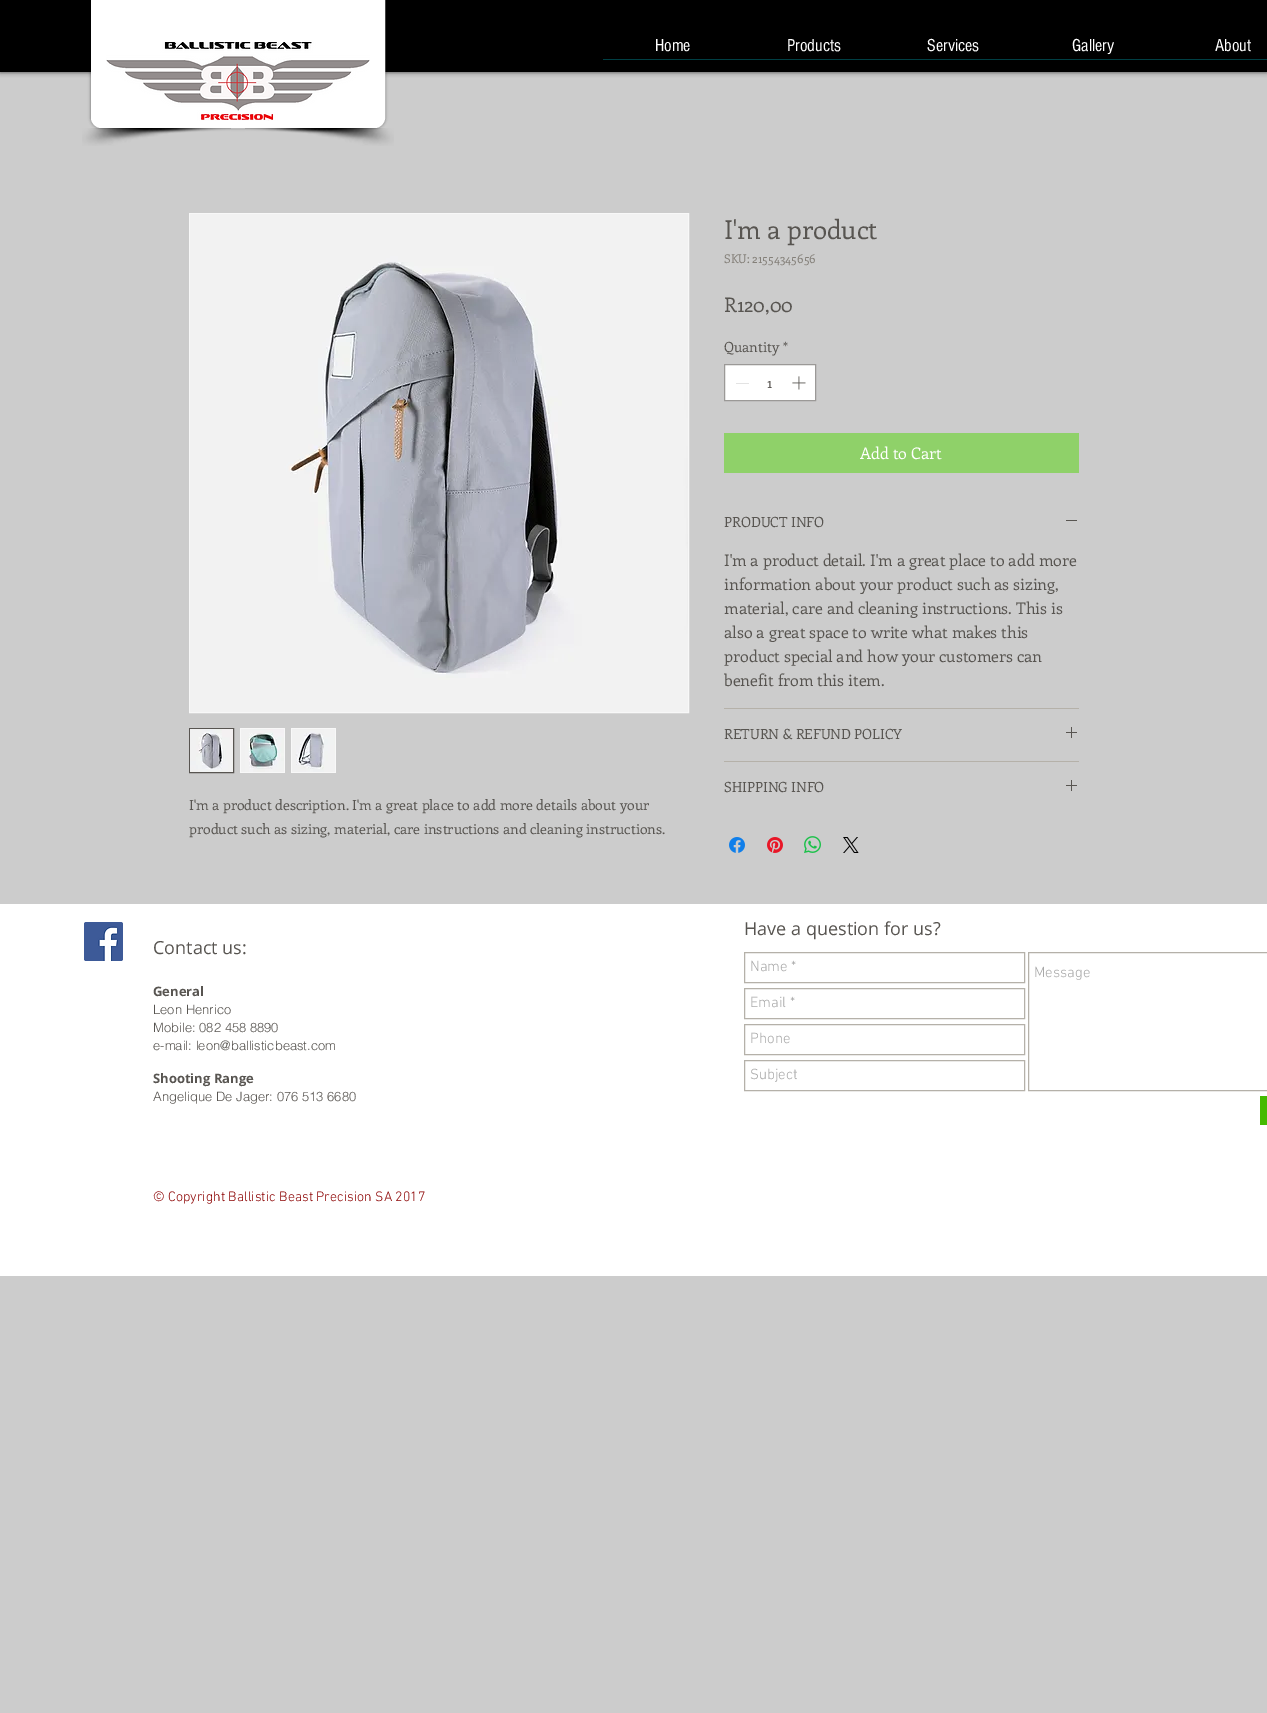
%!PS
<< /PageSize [1267 1713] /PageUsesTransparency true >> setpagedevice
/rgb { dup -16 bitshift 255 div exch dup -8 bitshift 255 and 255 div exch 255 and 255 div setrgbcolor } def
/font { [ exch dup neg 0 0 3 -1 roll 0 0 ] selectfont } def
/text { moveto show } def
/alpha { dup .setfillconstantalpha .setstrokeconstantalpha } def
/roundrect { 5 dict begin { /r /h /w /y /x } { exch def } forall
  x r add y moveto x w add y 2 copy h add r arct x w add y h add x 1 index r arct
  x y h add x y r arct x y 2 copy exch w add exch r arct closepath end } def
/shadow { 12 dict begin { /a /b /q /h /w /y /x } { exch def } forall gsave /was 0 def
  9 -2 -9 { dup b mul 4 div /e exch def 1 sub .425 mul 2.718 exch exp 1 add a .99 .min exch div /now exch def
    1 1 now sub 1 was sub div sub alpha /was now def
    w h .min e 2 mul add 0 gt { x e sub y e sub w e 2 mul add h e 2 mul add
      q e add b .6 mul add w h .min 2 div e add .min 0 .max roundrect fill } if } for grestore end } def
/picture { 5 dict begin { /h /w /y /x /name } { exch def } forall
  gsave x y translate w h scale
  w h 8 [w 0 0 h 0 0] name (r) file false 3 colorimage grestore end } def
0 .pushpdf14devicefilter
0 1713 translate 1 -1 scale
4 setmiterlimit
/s1 { /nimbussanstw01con-Regular 18 font 16#FFFFFF rgb } def
/s2 { /Enriqueta-Regular 26 font 16#585551 rgb } def
/s3 { /Enriqueta-Regular 12 font 16#848079 rgb } def
/s4 { /Enriqueta-Regular 20 font 16#585551 rgb } def
/s5 { /Enriqueta-Regular 14 font 16#585551 rgb } def
/s6 { /Enriqueta-Regular 16 font 16#FFFFFF rgb } def
/s7 { /Enriqueta-Regular 16 font 16#585551 rgb } def
/s8 { /OpenSans-Regular 18 font 16#585551 rgb } def
/s9 { /OpenSans-Bold 13 font 16#585551 rgb } def
/s10 { /helvetica-Light 13 font 16#585551 rgb } def
/s11 { /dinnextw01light-Light 15 font 16#A9A9A9 rgb } def
/s12 { /dinnextw01light-Light 14 font 16#8B0000 rgb } def
16#CCCCCC rgb
0 0 1267 1713 rectfill
16#000000 rgb
0 0 1267 72 0 2.5 0.7 shadow
0 0 1267 72 rectfill
91 0 294 128 10 1.5 0.5 shadow
16#FFFFFF rgb
92.5 1.5 moveto 383.5 1.5 lineto 383.5 118 lineto 383.5 122.5 379.5 126.5 375 126.5 curveto 101 126.5 lineto 96.5 126.5 92.5 122.5 92.5 118 curveto closepath gsave fill grestore
3 setlinewidth
stroke
(pic1.raw) 106 42 264 79 picture
(pic2.raw) 82 128 149 18 picture
(pic3.raw) 245 128 149 18 picture
s1
(Home) 655 51 text
(Products) 787 51 text
(Services) 927 51 text
(Gallery) 1072 51 text
(About) 1215 51 text
16#003F44 rgb
603 59 664 1 rectfill
s2
(I'm a product) 724 239 text
s3
(SKU: 21554345656) 724 263 text
s4
(R120,00) 724 312 text
s5
(Quantity) 724 352 text
(*) 783 352 text
16#FFFFFF rgb
724.5 364.5 moveto 815.5 364.5 lineto 815.5 400.5 lineto 724.5 400.5 lineto closepath gsave fill grestore
16#9B9997 rgb
1 setlinewidth
stroke
16#E3E3E3 rgb
736 383 13 1 rectfill
s5
(1) 767 388 text
(pic4.raw) 792 376 14 14 picture
16#8FD169 rgb
724 433 355 40 rectfill
s6
(Add to Cart) 860 459 text
16#B5B1A9 rgb
724 708 355 1 rectfill
s5
(PRODUCT INFO) 724 527 text
1066 520 11 1 rectfill
s7
(I'm a product detail. I'm a great place to add more) 724 566 text
(information about your product such as sizing,) 724 590 text
(material, care and cleaning instructions. This is) 724 614 text
(also a great space to write what makes this) 724 638 text
(product special and how your customers can) 724 662 text
(benefit from this item.) 724 686 text
16#B5B1A9 rgb
724 761 355 1 rectfill
s5
(RETURN & REFUND POLICY) 724 739 text
(pic5.raw) 1066 727 11 11 picture
(SHIPPING INFO) 724 792 text
(pic5.raw) 1066 780 11 11 picture
(pic6.raw) 729 837 16 16 picture
(pic7.raw) 767 837 16 16 picture
(pic8.raw) 804 836 17 17 picture
(pic9.raw) 843 837 16 16 picture
16#F8F8F8 rgb
189.5 213.5 499 499 rectstroke
(pic10.raw) 190 214 498 498 picture
16#585551 rgb
189.5 728.5 44 44 rectstroke
(pic11.raw) 190 729 43 43 picture
16#F8F8F8 rgb
240 728 45 45 rectfill
(pic12.raw) 241 729 43 43 picture
291 728 45 45 rectfill
(pic13.raw) 292 729 43 43 picture
s5
(I'm a product description. I'm a great place to add more details about your) 189 810 text
(product such as sizing, material, care instructions and cleaning instructions.) 189 834 text
16#FFFFFF rgb
0 904 1267 372 rectfill
(pic14.raw) 84 922 39 39 picture
s8
(Contact us:) 153 954 text
s9
(General) 153 996 text
s10
(Leon Henrico) 153 1014 text
(Mobile: 082 458 8890) 153 1032 text
(e-mail: leon@ballisticbeast.com) 153 1050 text
s9
(Shooting Range) 153 1083 text
s10
(Angelique De Jager: 076 513 6680) 153 1101 text
s8
(Have a question for us?) 744 935 text
16#B5B1A9 rgb
744.5 952.5 280 30 rectstroke
s11
(Name *) 750 971 text
16#B5B1A9 rgb
1028.5 952.5 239 138 rectstroke
s11
(Message) 1034 977 text
16#B5B1A9 rgb
744.5 988.5 280 30 rectstroke
s11
(Email *) 750 1007 text
16#B5B1A9 rgb
744.5 1024.5 280 30 rectstroke
s11
(Phone) 750 1043 text
16#B5B1A9 rgb
744.5 1060.5 280 30 rectstroke
s11
(Subject) 750 1079 text
16#45BA01 rgb
1260 1096 7 29 rectfill
s12
(© Copyright Ballistic Beast Precision SA 2017) 153 1201 text
.poppdf14devicefilter showpage
